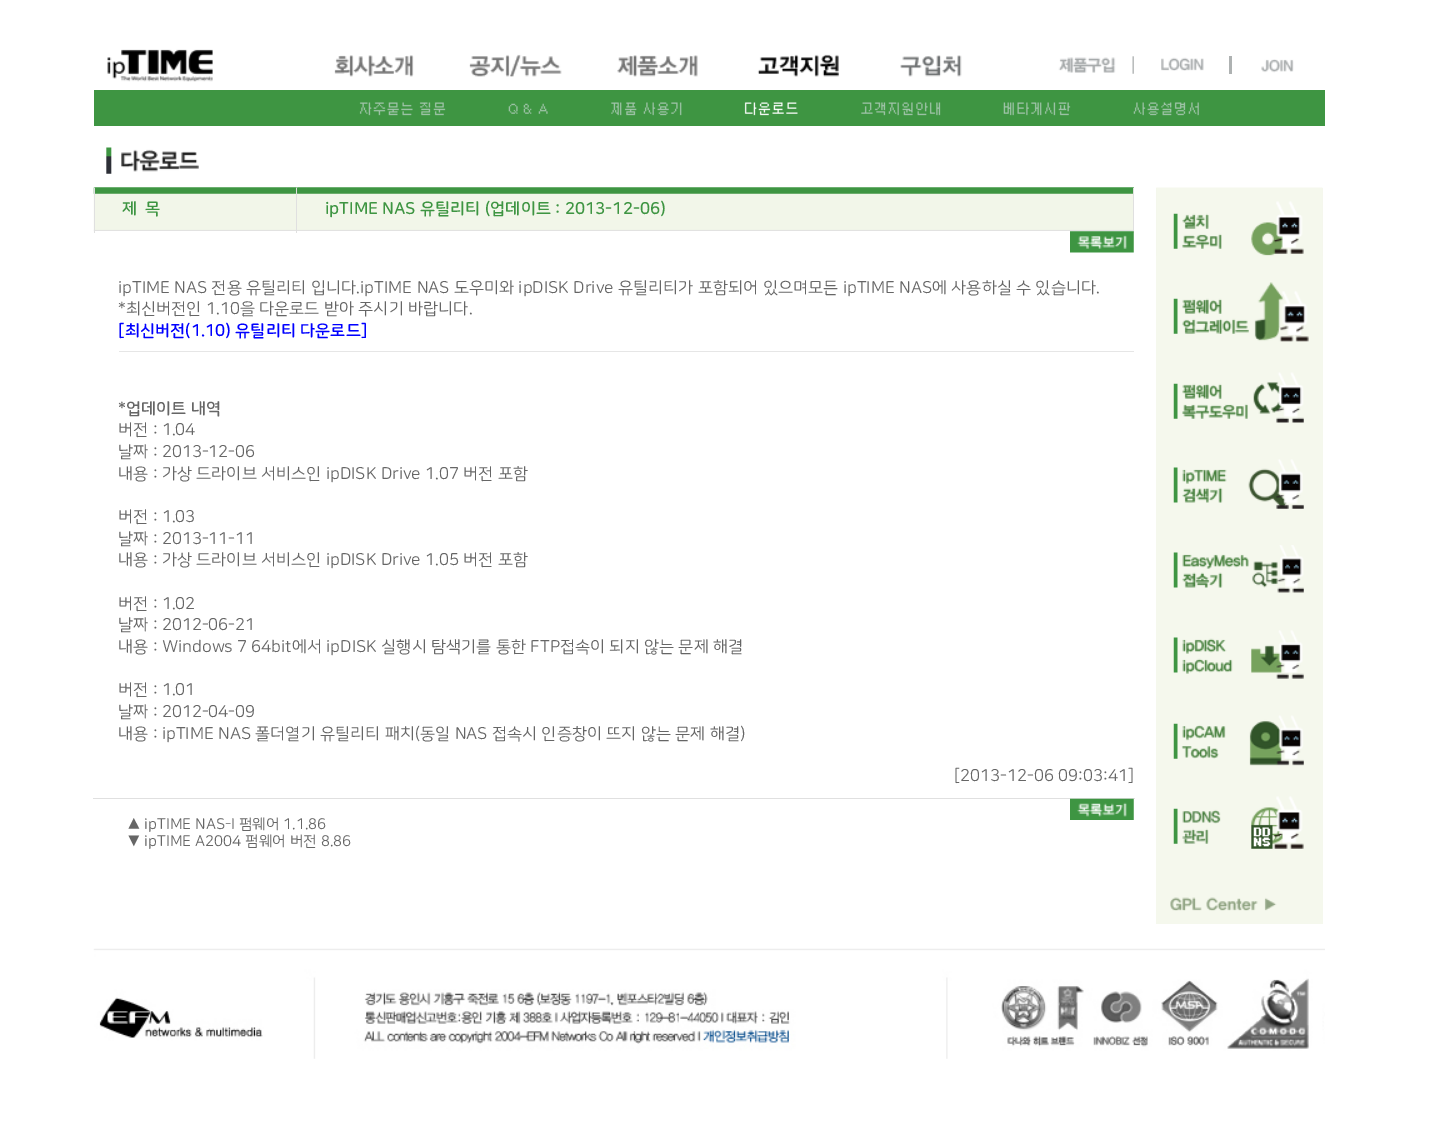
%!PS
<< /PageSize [1450 1145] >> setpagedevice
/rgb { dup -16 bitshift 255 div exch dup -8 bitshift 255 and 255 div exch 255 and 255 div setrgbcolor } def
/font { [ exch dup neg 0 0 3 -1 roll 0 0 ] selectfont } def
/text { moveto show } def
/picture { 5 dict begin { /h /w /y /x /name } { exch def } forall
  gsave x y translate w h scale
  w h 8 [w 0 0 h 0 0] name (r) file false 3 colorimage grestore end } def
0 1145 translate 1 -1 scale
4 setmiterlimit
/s1 { /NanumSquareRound-Bold 16.67 font 16#3E9542 rgb } def
/s2 { /NanumSquareRound-Regular 16.67 font 16#666666 rgb } def
/s3 { /NanumSquareRound-Bold 16.67 font 16#0000FF rgb } def
/s4 { /NanumSquareRound-Bold 16.67 font 16#666666 rgb } def
/s5 { /NanumSquareRound-Regular 15 font 16#666666 rgb } def
16#FFFFFF rgb
0 0 1450 1145 rectfill
(pic1.raw) 107 49 106 33 picture
(pic2.raw) 334 55 80 22 picture
(pic3.raw) 469 54 93 23 picture
(pic4.raw) 617 55 81 22 picture
(pic5.raw) 757 54 82 23 picture
(pic6.raw) 900 55 62 22 picture
(pic7.raw) 1058 57 58 16 picture
(pic8.raw) 1132 56 2 18 picture
(pic9.raw) 1161 57 43 14 picture
16#AEB2B2 rgb
1229 56 3 18 rectfill
(pic10.raw) 1261 59 33 14 picture
16#3E9542 rgb
94 90 1231 36 rectfill
(pic11.raw) 359 102 87 14 picture
(pic12.raw) 508 103 40 11 picture
(pic13.raw) 611 102 71 14 picture
(pic14.raw) 744 102 54 14 picture
(pic15.raw) 861 102 80 14 picture
(pic16.raw) 1003 102 68 14 picture
(pic17.raw) 1133 102 66 14 picture
(pic18.raw) 106 147 93 27 picture
(pic19.raw) 93 187 204 45 picture
16#FFFFFF rgb
94 231 203 1 rectfill
16#E0E0E0 rgb
94 188 1 45 rectfill
s1
(제  목) 122 214 text
(pic20.raw) 296 187 838 44 picture
16#E0E0E0 rgb
1133 188 1 45 rectfill
296 188 1 45 rectfill
s1
(ipTIME NAS 유틸리티 \(업데이트 : 2013-12-06\)) 325 214 text
(pic21.raw) 1070 231 64 22 picture
s2
(ipTIME NAS 전용 유틸리티 입니다.ipTIME NAS 도우미와 ipDISK Drive 유틸리티가 포함되어 있으며모든 ipTIME NAS에 사용하실 수 있습니다.) 118 293 text
(*최신버전인 1.10을 다운로드 받아 주시기 바랍니다.) 118 314 text
s3
([최신버전\(1.10\) 유틸리티 다운로드]) 118 336 text
16#E6E6E6 rgb
119 351 1015 1 rectfill
s4
(*업데이트 내역) 118 414 text
s2
(버전 : 1.04) 118 435 text
(날짜 : 2013-12-06) 118 457 text
(내용 : 가상 드라이브 서비스인 ipDISK Drive 1.07 버전 포함) 118 479 text
(버전 : 1.03) 118 522 text
(날짜 : 2013-11-11) 118 544 text
(내용 : 가상 드라이브 서비스인 ipDISK Drive 1.05 버전 포함) 118 565 text
(버전 : 1.02) 118 609 text
(날짜 : 2012-06-21) 118 630 text
(내용 : Windows 7 64bit에서 ipDISK 실행시 탐색기를 통한 FTP접속이 되지 않는 문제 해결) 118 652 text
(버전 : 1.01) 118 695 text
(날짜 : 2012-04-09) 118 717 text
(내용 : ipTIME NAS 폴더열기 유틸리티 패치\(동일 NAS 접속시 인증창이 뜨지 않는 문제 해결\)) 118 739 text
([2013-12-06 09:03:41]) 954 781 text
16#E0E0E0 rgb
93 798 1042 1 rectfill
(pic22.raw) 1070 798 64 22 picture
s5
(▲ ipTIME NAS-I 펌웨어 1.1.86) 127 829 text
(▼ ipTIME A2004 펌웨어 버전 8.86) 127 846 text
16#F5F8ED rgb
1156 188 167 736 rectfill
(pic23.raw) 1156 187 167 69 picture
(pic24.raw) 1173 282 136 60 picture
(pic25.raw) 1173 372 131 51 picture
(pic26.raw) 1173 459 131 50 picture
(pic27.raw) 1173 545 131 48 picture
(pic28.raw) 1173 630 131 49 picture
(pic29.raw) 1173 715 131 51 picture
(pic30.raw) 1173 796 131 53 picture
(pic31.raw) 1170 897 107 14 picture
(pic32.raw) 93 948 1232 111 picture
showpage
